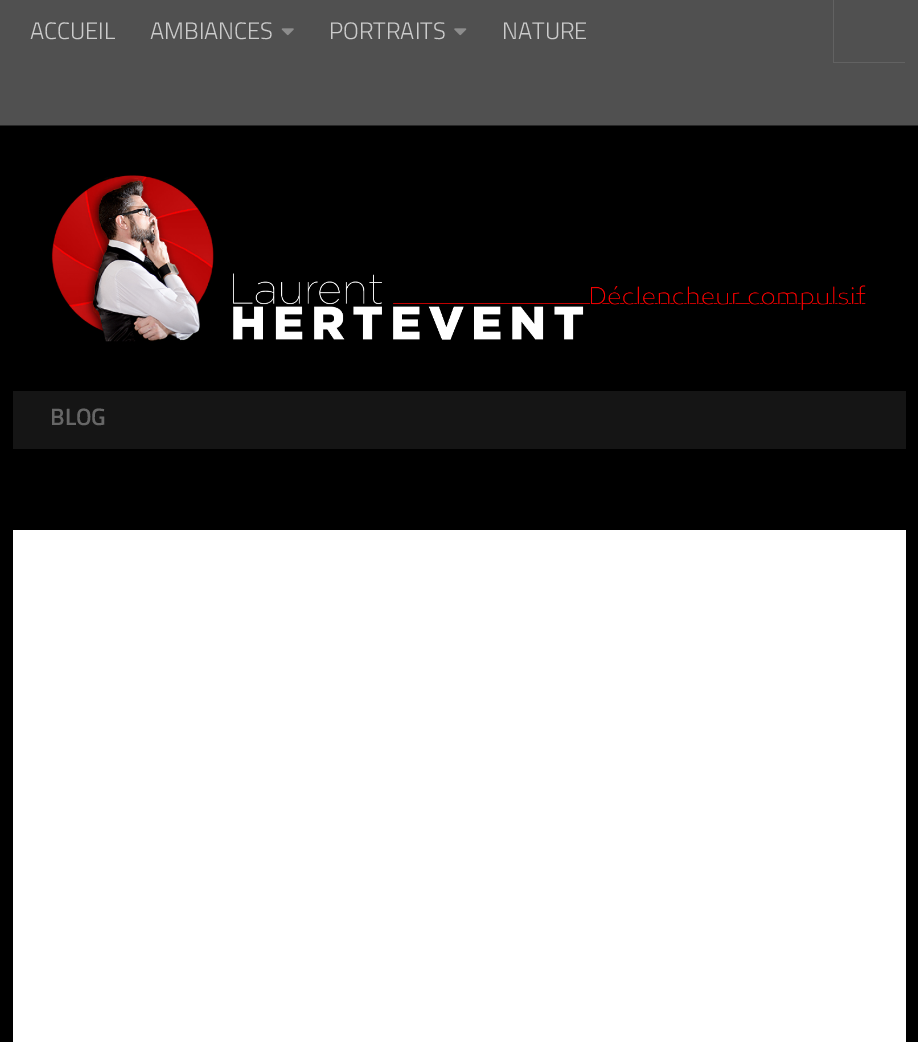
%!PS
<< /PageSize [918 1042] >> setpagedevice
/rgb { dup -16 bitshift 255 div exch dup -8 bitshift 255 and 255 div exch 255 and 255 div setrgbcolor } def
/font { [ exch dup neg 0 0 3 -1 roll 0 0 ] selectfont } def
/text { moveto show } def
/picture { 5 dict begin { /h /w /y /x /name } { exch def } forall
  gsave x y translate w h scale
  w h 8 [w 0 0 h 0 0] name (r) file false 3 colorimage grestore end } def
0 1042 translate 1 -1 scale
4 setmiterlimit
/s1 { /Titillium-Light 23.75 font 16#CBCBCB rgb } def
/s2 { /Titillium-SemiBold 23.75 font 16#666666 rgb } def
16#000000 rgb
0 0 918 1042 rectfill
16#262626 rgb
0 125 moveto 0 126 lineto 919 126 lineto 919 1 lineto 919 125 lineto closepath fill
16#505050 rgb
0 0 918 125 rectfill
s1
(ACCUEIL) 30 39 text
(AMBIANCES) 150 39 text
(pic1.raw) 281 28 13 8 picture
(PORTRAITS) 329 39 text
(pic2.raw) 454 28 13 8 picture
(NATURE) 502 39 text
16#626262 rgb
833 0 moveto 833 63 lineto 905 63 lineto 905 62 lineto 834 62 lineto 834 0 lineto closepath fill
(pic3.raw) 51 175 815 167 picture
16#FFFFFF rgb
13 530 893 512 rectfill
16#151515 rgb
13 391 893 58 rectfill
s2
(BLOG) 50 425 text
showpage
